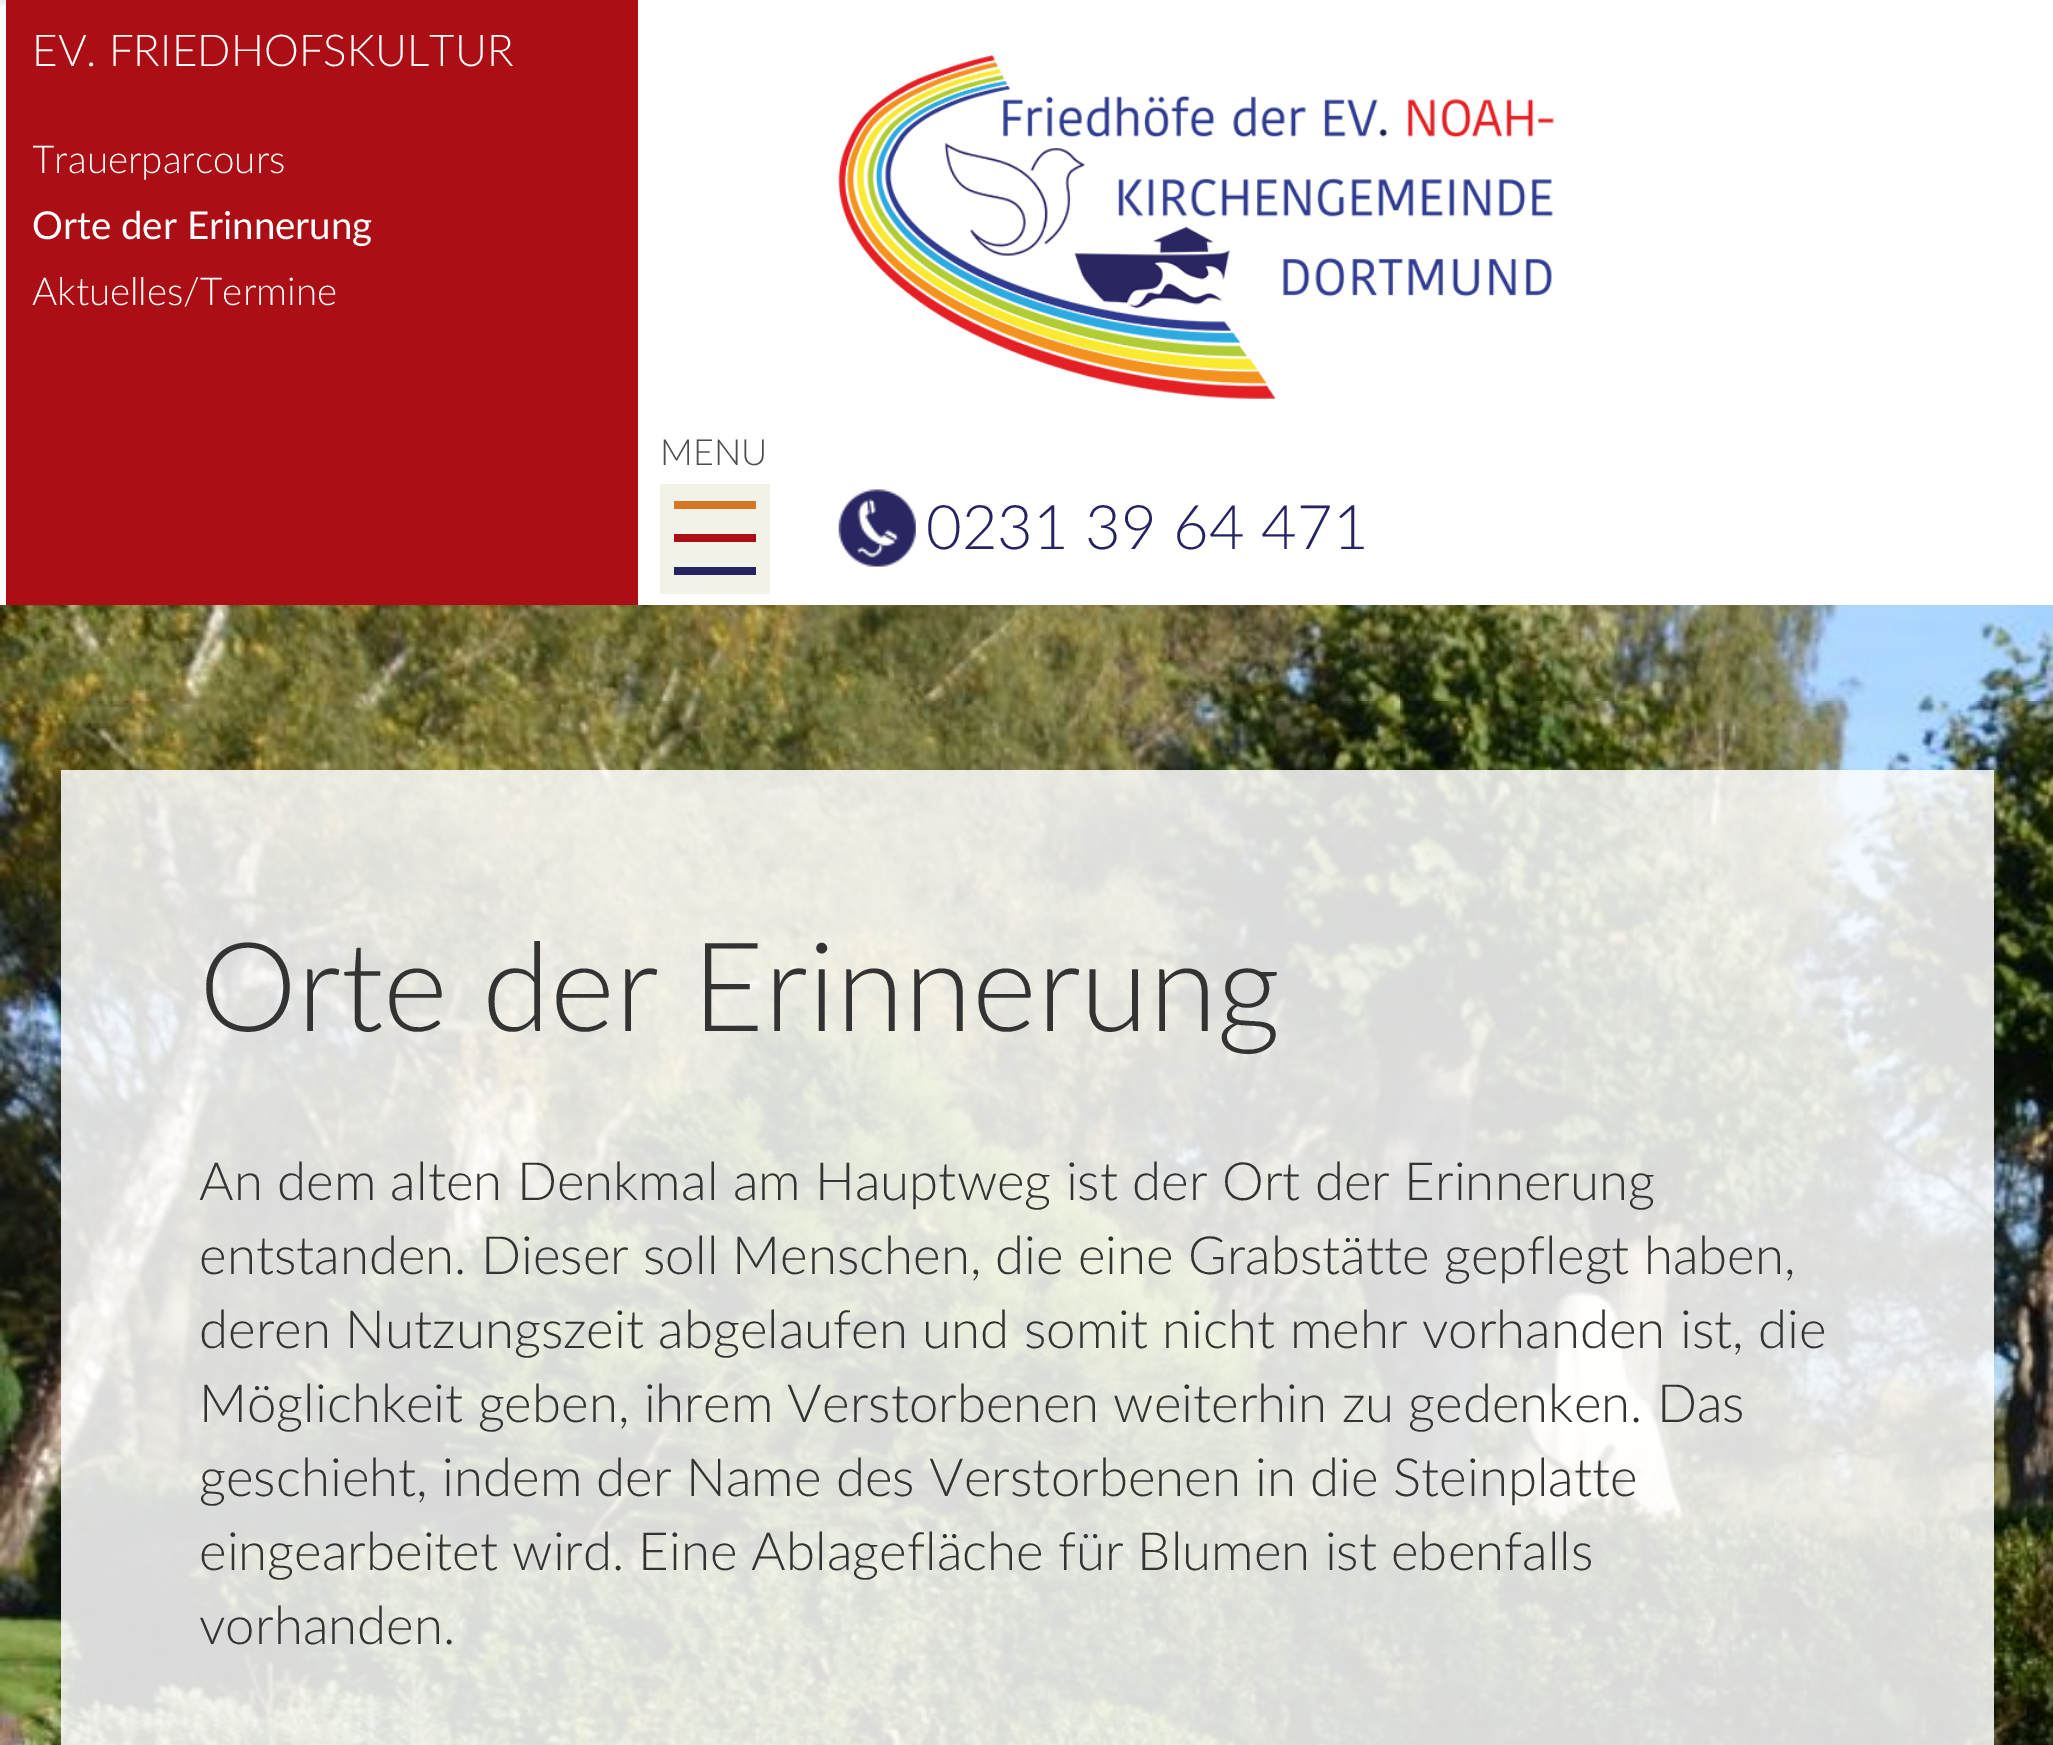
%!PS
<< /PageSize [2053 1745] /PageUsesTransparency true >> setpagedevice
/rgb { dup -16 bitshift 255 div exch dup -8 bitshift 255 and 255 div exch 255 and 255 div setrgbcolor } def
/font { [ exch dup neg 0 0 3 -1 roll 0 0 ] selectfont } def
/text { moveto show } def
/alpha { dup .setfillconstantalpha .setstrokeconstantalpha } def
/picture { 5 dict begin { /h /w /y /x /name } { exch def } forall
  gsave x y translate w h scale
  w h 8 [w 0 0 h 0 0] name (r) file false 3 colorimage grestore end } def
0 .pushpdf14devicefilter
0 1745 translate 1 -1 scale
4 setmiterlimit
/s1 { /Lato-Light 44 font 16#FFFFFF rgb } def
/s2 { /Lato-Light 38.5 font 16#FFFFFF rgb } def
/s3 { /Lato-Regular 38.5 font 16#FFFFFF rgb } def
/s4 { /Lato-Light 36 font 16#4C4C4C rgb } def
/s5 { /Lato-Light 61.5 font 16#262362 rgb } def
/s6 { /Lato-Light 124 font 16#333333 rgb } def
/s7 { /Lato-Light 52.8 font 16#333333 rgb } def
16#FFFFFF rgb
0 0 2053 1745 rectfill
(pic1.raw) 0 605 2053 1140 picture
(pic2.raw) 0 0 2053 605 picture
16#AB0F15 rgb
6 0 632 605 rectfill
s1
(EV. FRIEDHOFSKULTUR) 32 66 text
gsave
33 127 578 198 rectclip
s2
(Trauerparcours) 32 173 text
grestore
s3
(Orte der Erinnerung) 32 239 text
s2
(Aktuelles/Termine) 32 305 text
s4
(MENU) 660 465 text
16#F2F2E9 rgb
660 484 110 110 rectfill
16#AB0F15 rgb
674 534 82 8 rectfill
16#D67723 rgb
674 501 82 8 rectfill
16#262362 rgb
674 567 82 8 rectfill
(pic3.raw) 838 55 716 344 picture
(pic4.raw) 838 489 78 78 picture
s5
(0231 39 64 471) 926 549 text
0.85 alpha
16#FFFFFF rgb
61 770 1933 975 rectfill
1 alpha
s6
(Orte der Erinnerung) 199 1031 text
s7
(An dem alten Denkmal am Hauptweg ist der Ort der Erinnerung) 199 1200 text
199 1274 moveto -0.25 0 32 (entstanden. Dieser soll Menschen, die eine Grabstätte gepflegt haben,) widthshow
(deren Nutzungszeit abgelaufen und somit nicht mehr vorhanden ist, die) 199 1348 text
(Möglichkeit geben, ihrem Verstorbenen weiterhin zu gedenken. Das) 199 1422 text
(geschieht, indem der Name des Verstorbenen in die Steinplatte) 199 1496 text
199 1570 moveto -0.25 0 32 (eingearbeitet wird. Eine Ablagefläche für Blumen ist ebenfalls) widthshow
(vorhanden.) 199 1644 text
.poppdf14devicefilter showpage
